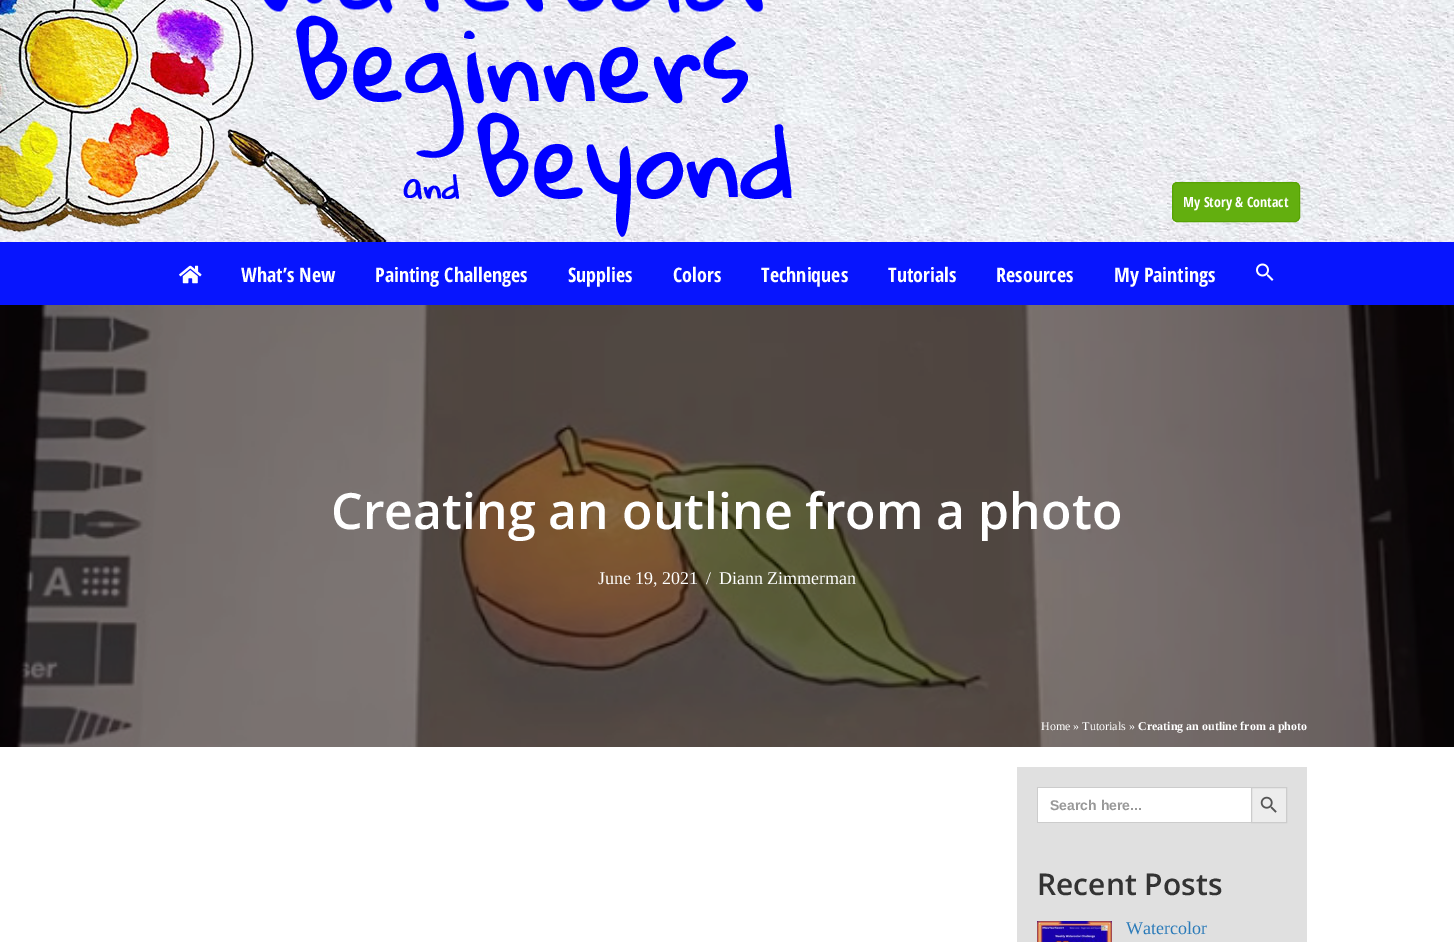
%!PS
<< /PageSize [1454 942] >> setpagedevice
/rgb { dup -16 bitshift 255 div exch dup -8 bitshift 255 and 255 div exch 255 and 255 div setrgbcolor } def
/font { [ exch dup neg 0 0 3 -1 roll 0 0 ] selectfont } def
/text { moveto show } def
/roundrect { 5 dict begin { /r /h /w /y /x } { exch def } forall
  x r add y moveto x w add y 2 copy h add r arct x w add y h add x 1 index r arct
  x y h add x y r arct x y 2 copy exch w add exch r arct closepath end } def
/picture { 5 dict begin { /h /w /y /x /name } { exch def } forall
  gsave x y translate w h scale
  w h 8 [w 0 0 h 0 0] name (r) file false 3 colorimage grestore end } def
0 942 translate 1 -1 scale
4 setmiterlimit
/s1 { /OpenSansCondensed-Bold 14 font 16#FFFFFF rgb } def
/s2 { /OpenSansCondensed-Bold 20 font 16#FFFFFF rgb } def
/s3 { /OpenSans-SemiBold 50 font 16#FFFFFF rgb } def
/s4 { /LiberationSerif-Regular 18 font 16#FFFFFF rgb } def
/s5 { /LiberationSerif-Regular 12 font 16#FFFFFF rgb } def
/s6 { /LiberationSerif-Bold 12 font 16#FFFFFF rgb } def
/s7 { /LiberationSans-Bold 14 font 16#999999 rgb } def
/s8 { /OpenSans-SemiBold 30 font 16#333333 rgb } def
/s9 { /LiberationSerif-Regular 18 font 16#2B7BB9 rgb } def
16#FFFFFF rgb
0 0 1454 942 rectfill
(pic1.raw) 0 0 1454 242 picture
(pic2.raw) 0 0 792 242 picture
16#63AF0F rgb
1172.5 182.5 127 39 4.5 roundrect gsave fill grestore
16#57A303 rgb
stroke
s1
(My Story & Contact) 1183 207 text
16#0715FE rgb
0 242 1454 63 rectfill
(pic3.raw) 179 265 23 19 picture
s2
(What’s New) 241 282 text
(Painting Challenges) 375 282 text
(Supplies) 568 282 text
(Colors) 673 282 text
(Techniques) 761 282 text
(Tutorials) 888 282 text
(Resources) 996 282 text
(My Paintings) 1114 282 text
(pic4.raw) 1256 263 18 18 picture
(pic5.raw) 0 305 1454 442 picture
s3
(Creating an outline from a photo) 331 529 text
s4
(June 19, 2021) 598 584 text
(/) 706 584 text
(Diann Zimmerman) 719 584 text
s5
(Home » Tutorials ») 1041 730 text
s6
(Creating an outline from a photo) 1138 730 text
16#E0E0E0 rgb
1017 767 290 175 rectfill
16#FFFFFF rgb
1038 788 213 34 rectfill
16#CCCCCC rgb
1037 787 214 1 rectfill
1037 822 214 1 rectfill
1037 787 1 36 rectfill
s7
(Search here...) 1050 810 text
16#EDEDED rgb
1251.5 787.5 moveto 1286.5 787.5 lineto 1286.5 822.5 lineto 1251.5 822.5 lineto closepath gsave fill grestore
16#CCCCCC rgb
stroke
(pic6.raw) 1260 796 17 17 picture
s8
(Recent Posts) 1037 895 text
(pic7.raw) 1037 921 75 21 picture
s9
(Watercolor) 1126 934 text
showpage
